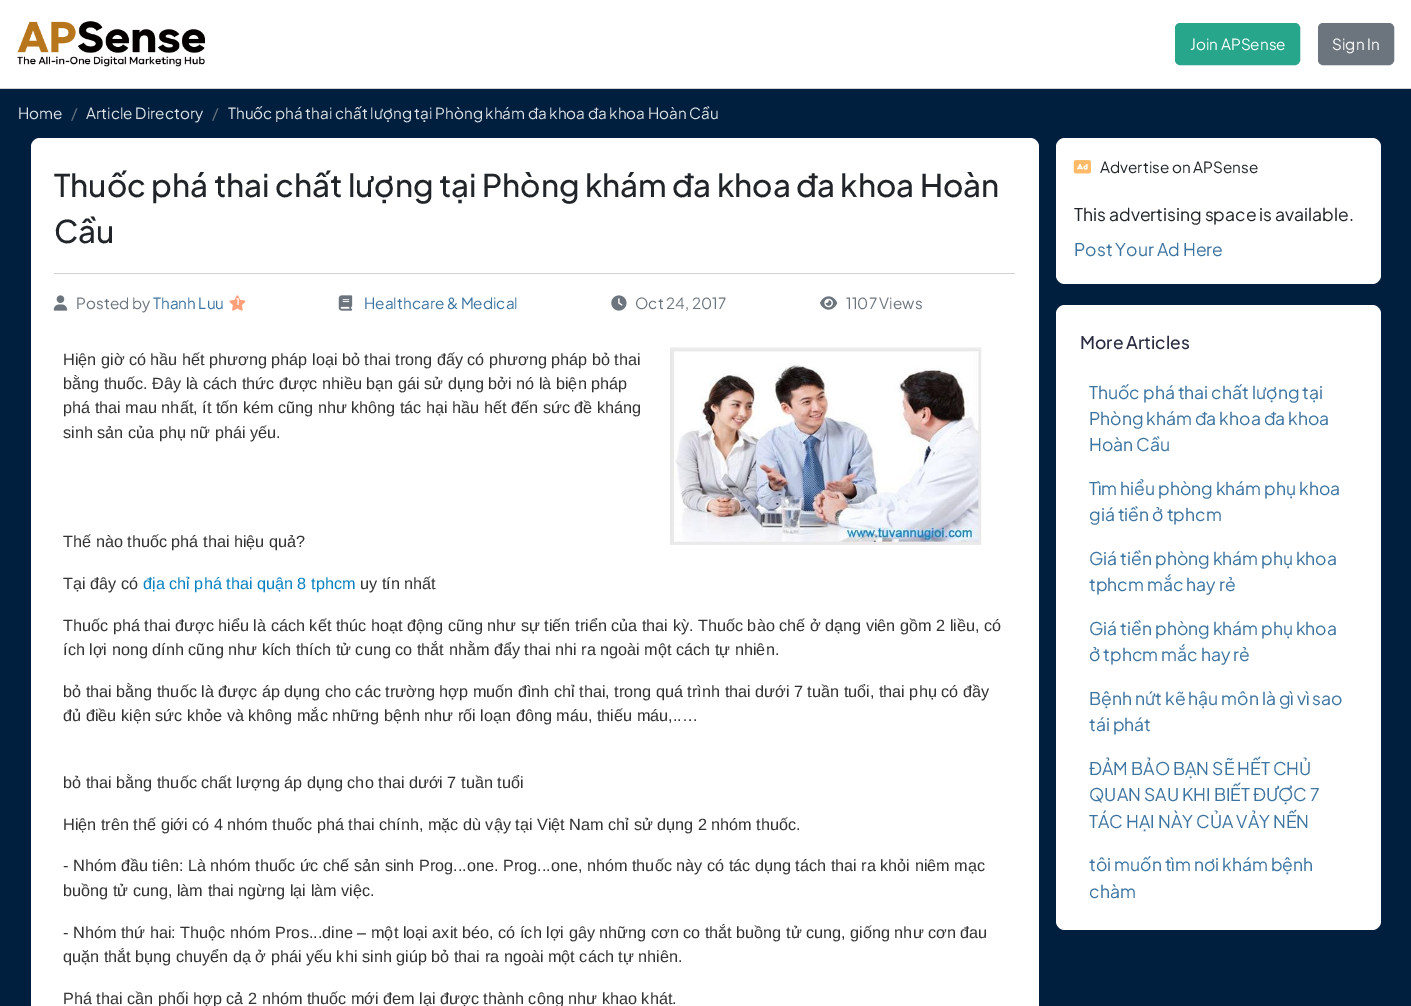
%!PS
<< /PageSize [1411 1006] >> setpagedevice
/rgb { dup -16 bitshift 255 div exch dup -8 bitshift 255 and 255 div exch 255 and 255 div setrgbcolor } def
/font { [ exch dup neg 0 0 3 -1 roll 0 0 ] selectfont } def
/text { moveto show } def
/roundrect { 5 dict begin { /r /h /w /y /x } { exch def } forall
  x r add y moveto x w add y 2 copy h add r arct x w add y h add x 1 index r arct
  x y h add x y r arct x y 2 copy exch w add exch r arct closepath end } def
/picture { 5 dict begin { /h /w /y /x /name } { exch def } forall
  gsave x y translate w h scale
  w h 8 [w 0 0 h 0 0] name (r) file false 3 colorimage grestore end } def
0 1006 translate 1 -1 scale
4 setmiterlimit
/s1 { /PlusJakartaSans-Regular 15.3 font 16#FFFFFF rgb } def
/s2 { /PlusJakartaSans-Regular 15.3 font 16#DEE2E6 rgb } def
/s3 { /PlusJakartaSans-Regular 15.3 font 16#6C757D rgb } def
/s4 { /PlusJakartaSans-Medium 31.25 font 16#212529 rgb } def
/s5 { /PlusJakartaSans-Regular 15.3 font 16#3E74A0 rgb } def
/s6 { /PlusJakartaSans-Bold 9 font 16#FFFFFF rgb } def
/s7 { /LiberationSans-Regular 16.25 font 16#333333 rgb } def
/s8 { /LiberationSans-Regular 16.25 font 16#0782C1 rgb } def
/s9 { /PlusJakartaSans-Regular 15.3 font 16#212529 rgb } def
/s10 { /PlusJakartaSans-Regular 17.5 font 16#212529 rgb } def
/s11 { /PlusJakartaSans-Regular 17.5 font 16#3E74A0 rgb } def
/s12 { /PlusJakartaSans-Medium 17.5 font 16#2B2D42 rgb } def
16#001F3F rgb
0 0 1411 1006 rectfill
16#FFFFFF rgb
0 0 1411 88 rectfill
16#D1D1D1 rgb
0 88 1411 1 rectfill
(pic1.raw) 17 21 188 46 picture
16#27A68C rgb
1175.5 23.5 124 41 4.5 roundrect gsave fill grestore
stroke
s1
(Join APSense) 1190 50 text
16#6C757D rgb
1318.5 23.5 75 41 4.5 roundrect gsave fill grestore
stroke
s1
(Sign In) 1332 50 text
s2
(Home) 18 119 text
s3
(/) 71 119 text
s2
(Article Directory) 86 119 text
s3
(/) 212 119 text
s2
(Thuốc phá thai chất lượng tại Phòng khám đa khoa đa khoa Hoàn Cầu) 228 119 text
16#FFFFFF rgb
31 138 1008 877 9 roundrect fill
16#D1D1D1 rgb
54 273 961 1 rectfill
s4
(Thuốc phá thai chất lượng tại Phòng khám đa khoa đa khoa Hoàn) 54 197 text
(Cầu) 54 243 text
(pic2.raw) 53 295 15 16 picture
s3
(Posted by) 76 309 text
s5
(Thanh Luu) 153 309 text
(pic3.raw) 229 295 17 16 picture
s6
(1) 236 305 text
(pic4.raw) 338 295 15 16 picture
s5
(Healthcare & Medical) 364 309 text
(pic5.raw) 611 295 16 16 picture
s3
(Oct 24, 2017) 635 309 text
(pic6.raw) 820 296 18 14 picture
(1107 Views) 846 309 text
s7
(Hiện giờ có hầu hết phương pháp loại bỏ thai trong đấy có phương pháp bỏ thai) 63 365 text
(bằng thuốc. Đây là cách thức được nhiều bạn gái sử dụng bởi nó là biện pháp) 63 389 text
(phá thai mau nhất, ít tốn kém cũng như không tác hại hầu hết đến sức đề kháng) 63 413 text
(sinh sản của phụ nữ phái yếu.) 63 438 text
(pic7.raw) 670 347 312 198 picture
(Thế nào thuốc phá thai hiệu quả?) 63 547 text
(Tại đây có) 63 589 text
s8
(địa chỉ phá thai quận 8 tphcm) 143 589 text
s7
(uy tín nhất) 360 589 text
(Thuốc phá thai được hiểu là cách kết thúc hoạt động cũng như sự tiến triển của thai kỳ. Thuốc bào chế ở dạng viên gồm 2 liều, có) 63 631 text
(ích lợi nong dính cũng như kích thích tử cung co thắt nhằm đẩy thai nhi ra ngoài một cách tự nhiên.) 63 655 text
(bỏ thai bằng thuốc là được áp dụng cho các trường hợp muốn đình chỉ thai, trong quá trình thai dưới 7 tuần tuổi, thai phụ có đầy) 63 697 text
(đủ điều kiện sức khỏe và không mắc những bệnh như rối loạn đông máu, thiếu máu,..…) 63 721 text
(bỏ thai bằng thuốc chất lượng áp dụng cho thai dưới 7 tuần tuổi) 63 788 text
(Hiện trên thế giới có 4 nhóm thuốc phá thai chính, mặc dù vậy tại Việt Nam chỉ sử dụng 2 nhóm thuốc.) 63 830 text
(- Nhóm đầu tiên: Là nhóm thuốc ức chế sản sinh Prog...one. Prog...one, nhóm thuốc này có tác dụng tách thai ra khỏi niêm mạc) 63 871 text
(buồng tử cung, làm thai ngừng lại làm việc.) 63 896 text
(- Nhóm thứ hai: Thuộc nhóm Pros...dine – một loại axit béo, có ích lợi gây những cơn co thắt buồng tử cung, giống như cơn đau) 63 938 text
(quặn thắt bụng chuyển dạ ở phái yếu khi sinh giúp bỏ thai ra ngoài một cách tự nhiên.) 63 962 text
(Phá thai cần phối hợp cả 2 nhóm thuốc mới đem lại được thành công như khao khát.) 63 1004 text
16#FFFFFF rgb
1056 138 325 146 9 roundrect fill
(pic8.raw) 1073 160 18 14 picture
s9
(Advertise on APSense) 1100 173 text
s10
(This advertising space is available.) 1074 221 text
s11
(Post Your Ad Here) 1074 256 text
16#FFFFFF rgb
1056 305 325 625 9 roundrect fill
s12
(More Articles) 1080 349 text
s11
(Thuốc phá thai chất lượng tại) 1089 399 text
(Phòng khám đa khoa đa khoa) 1089 425 text
(Hoàn Cầu) 1089 451 text
(Tìm hiểu phòng khám phụ khoa) 1089 495 text
(giá tiền ở tphcm) 1089 521 text
(Giá tiền phòng khám phụ khoa) 1089 565 text
(tphcm mắc hay rẻ) 1089 591 text
(Giá tiền phòng khám phụ khoa) 1089 635 text
(ở tphcm mắc hay rẻ) 1089 661 text
(Bệnh nứt kẽ hậu môn là gì vì sao) 1089 705 text
(tái phát) 1089 731 text
(ĐẢM BẢO BẠN SẼ HẾT CHỦ) 1089 775 text
(QUAN SAU KHI BIẾT ĐƯỢC 7) 1089 801 text
(TÁC HẠI NÀY CỦA VẢY NẾN) 1089 828 text
(tôi muốn tìm nơi khám bệnh) 1089 871 text
(chàm) 1089 898 text
showpage
